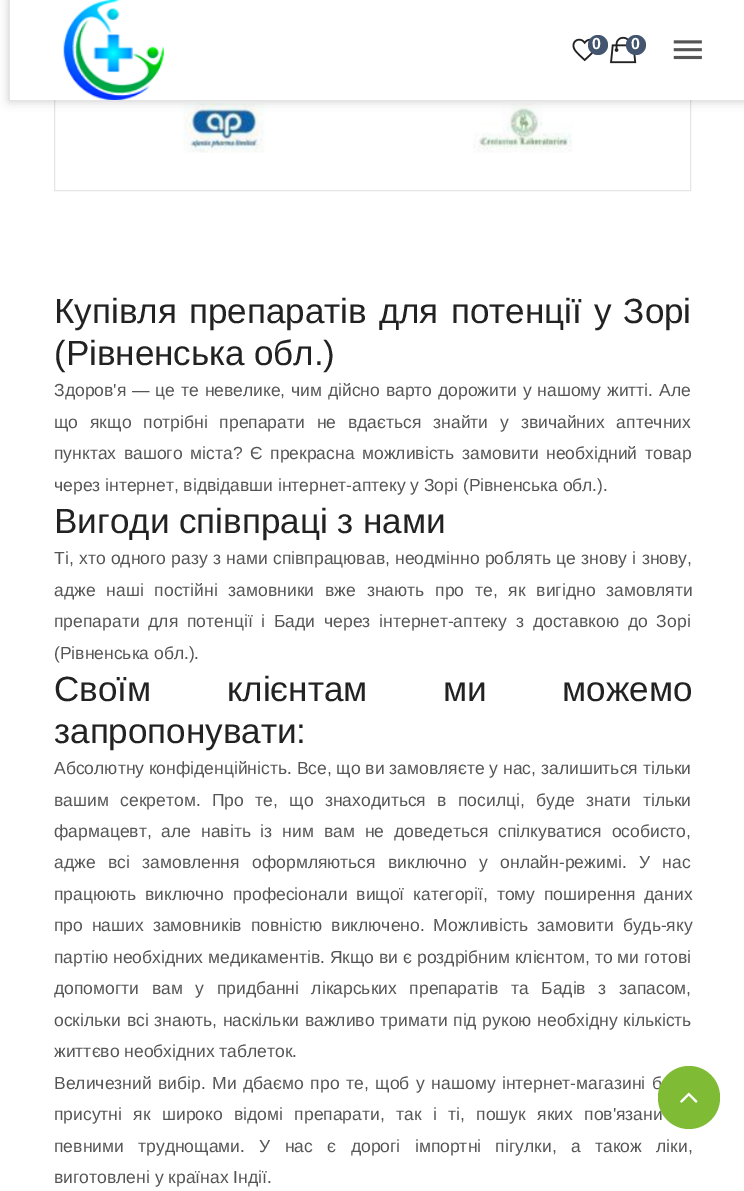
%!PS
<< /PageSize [744 1191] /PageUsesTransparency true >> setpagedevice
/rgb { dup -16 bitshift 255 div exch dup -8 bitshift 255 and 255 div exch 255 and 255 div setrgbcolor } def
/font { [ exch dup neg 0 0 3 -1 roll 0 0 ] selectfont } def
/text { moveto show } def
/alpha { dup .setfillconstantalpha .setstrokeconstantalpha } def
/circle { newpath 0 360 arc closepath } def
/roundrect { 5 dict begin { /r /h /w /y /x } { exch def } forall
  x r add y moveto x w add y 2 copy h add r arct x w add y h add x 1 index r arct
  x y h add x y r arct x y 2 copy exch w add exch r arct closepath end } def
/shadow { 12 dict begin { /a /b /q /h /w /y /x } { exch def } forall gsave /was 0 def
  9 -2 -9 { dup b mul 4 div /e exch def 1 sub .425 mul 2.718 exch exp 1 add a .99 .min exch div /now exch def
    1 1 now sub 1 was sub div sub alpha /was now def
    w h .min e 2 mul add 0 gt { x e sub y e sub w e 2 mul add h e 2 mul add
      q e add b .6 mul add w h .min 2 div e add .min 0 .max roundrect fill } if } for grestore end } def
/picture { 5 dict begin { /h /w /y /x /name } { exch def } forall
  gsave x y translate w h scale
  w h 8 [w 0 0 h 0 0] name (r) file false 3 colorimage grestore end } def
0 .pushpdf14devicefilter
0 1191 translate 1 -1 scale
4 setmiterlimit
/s1 { /LiberationSans-Bold 16 font 16#FFFFFF rgb } def
/s2 { /LiberationSans-Regular 35 font 16#222222 rgb } def
/s3 { /LiberationSans-Regular 17.5 font 16#555555 rgb } def
16#FFFFFF rgb
0 0 744 1191 rectfill
16#E5E5E5 rgb
54.5 64.5 636 126 rectstroke
(pic5.raw) 183 103 82 50 picture
(pic6.raw) 473 103 100 50 picture
16#000000 rgb
9 -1 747 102 0 5 0.2 shadow
16#FFFFFF rgb
10 0 734 100 rectfill
(pic1.raw) 63 0 101 100 picture
(pic2.raw) 572 38 22 24 picture
16#44556F rgb
598 45 10 circle fill
s1
(0) 592 49 text
(pic3.raw) 610 36 27 28 picture
16#44556F rgb
636 45 10 circle fill
s1
(0) 631 49 text
(pic4.raw) 673 40 29 20 picture
/LiberationSans-Regular 35 font
16#222222 rgb
54 323 moveto 2.5 0 32 (Купівля препаратів для потенції у Зорі) widthshow
(\(Рівненська обл.\)) 54 365 text
/LiberationSans-Regular 17.5 font
16#555555 rgb
54 396 moveto 1 0 32 (Здоров'я — це те невелике, чим дійсно варто дорожити у нашому житті. Але) widthshow
54 428 moveto 7 0 32 (що якщо потрібні препарати не вдається знайти у звичайних аптечних) widthshow
54 459 moveto 2.75 0 32 (пунктах вашого міста? Є прекрасна можливість замовити необхідний товар) widthshow
(через інтернет, відвідавши інтернет-аптеку у Зорі \(Рівненська обл.\).) 54 491 text
s2
(Вигоди співпраці з нами) 54 533 text
/LiberationSans-Regular 17.5 font
16#555555 rgb
54 564 moveto 0.5 0 32 (Ті, хто одного разу з нами співпрацював, неодмінно роблять це знову і знову,) widthshow
54 596 moveto 6 0 32 (адже наші постійні замовники вже знають про те, як вигідно замовляти) widthshow
54 627 moveto 4 0 32 (препарати для потенції і Бади через інтернет-аптеку з доставкою до Зорі) widthshow
(\(Рівненська обл.\).) 54 659 text
/LiberationSans-Regular 35 font
16#222222 rgb
54 701 moveto 66 0 32 (Своїм клієнтам ми можемо) widthshow
(запропонувати:) 54 743 text
s3
(Абсолютну конфіденційність. Все, що ви замовляєте у нас, залишиться тільки) 54 774 text
54 806 moveto 6.5 0 32 (вашим секретом. Про те, що знаходиться в посилці, буде знати тільки) widthshow
54 837 moveto 5 0 32 (фармацевт, але навіть із ним вам не доведеться спілкуватися особисто,) widthshow
54 868 moveto 7.5 0 32 (адже всі замовлення оформляються виключно у онлайн-режимі. У нас) widthshow
54 900 moveto 4 0 32 (працюють виключно професіонали вищої категорії, тому поширення даних) widthshow
54 931 moveto 4 0 32 (про наших замовників повністю виключено. Можливість замовити будь-яку) widthshow
54 963 moveto 0.1 0 32 (партію необхідних медикаментів. Якщо ви є роздрібним клієнтом, то ми готові) widthshow
54 994 moveto 7.75 0 32 (допомогти вам у придбанні лікарських препаратів та Бадів з запасом,) widthshow
54 1026 moveto 0.9 0 32 (оскільки всі знають, наскільки важливо тримати під рукою необхідну кількість) widthshow
(життєво необхідних таблеток.) 54 1057 text
54 1089 moveto 1.75 0 32 (Величезний вибір. Ми дбаємо про те, щоб у нашому інтернет-магазині б) widthshow
54 1120 moveto 6.5 0 32 (присутні як широко відомі препарати, так і ті, пошук яких пов'язани) widthshow
54 1152 moveto 9.5 0 32 (певними труднощами. У нас є дорогі імпортні пігулки, а також ліки,) widthshow
(виготовлені у країнах Індії.) 54 1183 text
16#FFFFFF rgb
658 1066 62 63 31 0.5 0.5 shadow
16#7FBB35 rgb
658 1066 62 63 31 roundrect fill
(pic7.raw) 680 1092 18 11 picture
.poppdf14devicefilter showpage
